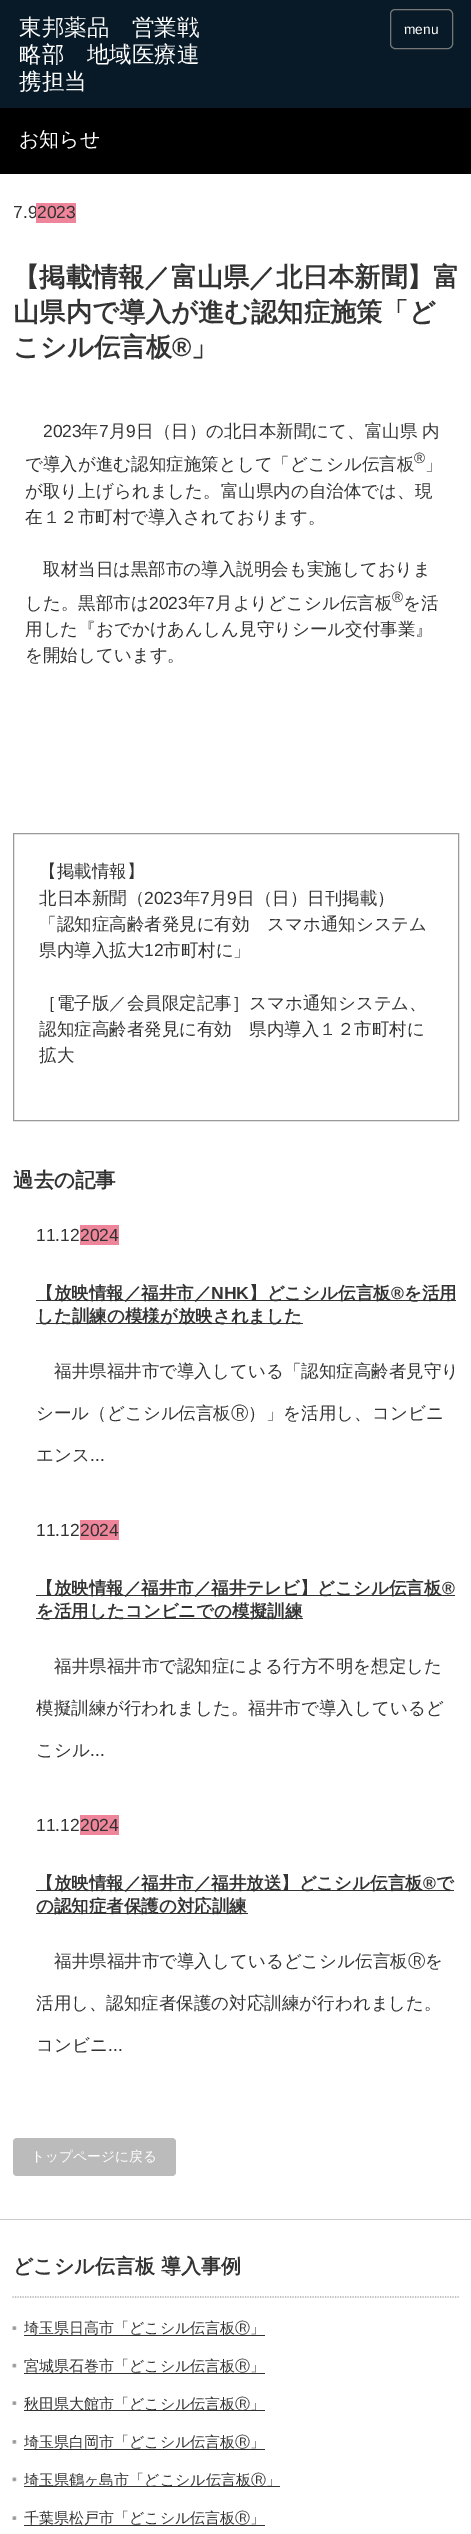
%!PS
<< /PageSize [471 2534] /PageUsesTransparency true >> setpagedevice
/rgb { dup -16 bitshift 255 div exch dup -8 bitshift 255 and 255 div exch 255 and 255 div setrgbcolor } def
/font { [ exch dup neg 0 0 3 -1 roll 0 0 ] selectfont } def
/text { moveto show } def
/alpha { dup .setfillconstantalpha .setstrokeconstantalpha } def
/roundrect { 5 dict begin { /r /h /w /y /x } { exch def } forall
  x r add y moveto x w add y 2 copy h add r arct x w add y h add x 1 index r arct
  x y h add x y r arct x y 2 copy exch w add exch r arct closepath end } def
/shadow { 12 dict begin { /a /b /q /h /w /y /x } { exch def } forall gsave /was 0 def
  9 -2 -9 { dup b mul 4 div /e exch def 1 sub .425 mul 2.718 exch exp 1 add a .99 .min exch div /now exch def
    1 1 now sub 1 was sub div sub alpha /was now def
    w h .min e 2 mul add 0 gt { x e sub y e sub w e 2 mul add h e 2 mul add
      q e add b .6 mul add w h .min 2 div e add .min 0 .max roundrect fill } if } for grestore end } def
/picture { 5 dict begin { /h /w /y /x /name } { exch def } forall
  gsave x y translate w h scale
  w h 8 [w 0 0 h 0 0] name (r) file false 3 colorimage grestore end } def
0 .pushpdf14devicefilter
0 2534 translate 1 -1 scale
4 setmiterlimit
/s1 { /WenQuanYiZenHei-Medium 22.5 font 16#FFFFFF rgb } def
/s2 { /LiberationSans-Regular 13.75 font 16#FFFFFF rgb } def
/s3 { /WenQuanYiZenHei-Medium 20 font 16#FFFFFF rgb } def
/s4 { /LiberationSans-Regular 17.5 font 16#333333 rgb } def
/s5 { /WenQuanYiZenHei-Bold 26.25 font 16#333333 rgb } def
/s6 { /LiberationSans-Bold 26.25 font 16#333333 rgb } def
/s7 { /WenQuanYiZenHei-Medium 17.5 font 16#333333 rgb } def
/s8 { /LiberationSans-Regular 15 font 16#333333 rgb } def
/s9 { /WenQuanYiZenHei-Bold 20.5 font 16#333333 rgb } def
/s10 { /WenQuanYiZenHei-Bold 17.5 font 16#333333 rgb } def
/s11 { /LiberationSans-Bold 17.5 font 16#333333 rgb } def
/s12 { /WenQuanYiZenHei-Medium 13.75 font 16#FFFFFF rgb } def
/s13 { /WenQuanYiZenHei-Bold 20 font 16#333333 rgb } def
/s14 { /WenQuanYiZenHei-Medium 15 font 16#333333 rgb } def
16#FFFFFF rgb
0 0 471 2534 rectfill
16#000000 rgb
0 108 471 66 rectfill
0 0 471 108 0 3 0.5 shadow
16#081A28 rgb
0 0 471 108 rectfill
s1
(東邦薬品　営業戦) 19 35 text
(略部　地域医療連) 19 62 text
(携担当) 19 89 text
16#777777 rgb
390.5 9.5 62 39 4.5 roundrect stroke
s2
(menu) 404 34 text
s3
(お知らせ) 19 146 text
s4
(7.9) 13 218 text
16#EE859A rgb
36 203 40 20 rectfill
s4
(2023) 37 218 text
s5
(【掲載情報／富山県／北日本新聞】富) 13 286 text
(山県内で導入が進む認知症施策「ど) 13 321 text
(こシル伝言板) 13 356 text
s6
(®) 172 356 text
s5
(」) 191 356 text
s4
(2023) 43 437 text
s7
(年) 81 437 text
s4
(7) 99 437 text
s7
(月) 109 437 text
s4
(9) 126 437 text
s7
(日（日）の北日本新聞にて、富山県 内) 136 437 text
(で導入が進む認知症施策として「どこシル伝言板) 25 470 text
s8
(®) 414 463 text
s7
(」) 425 470 text
(が取り上げられました。富山県内の自治体では、現) 25 497 text
(在１２市町村で導入されております。) 25 523 text
(取材当日は黒部市の導入説明会も実施しておりま) 43 575 text
(した。黒部市は) 25 609 text
s4
(2023) 149 609 text
s7
(年) 188 609 text
s4
(7) 205 609 text
s7
(月よりどこシル伝言板) 215 609 text
s8
(®) 392 602 text
s7
(を活) 403 609 text
(用した『おでかけあんしん見守りシール交付事業』) 25 635 text
(を開始しています。) 25 661 text
16#999999 rgb
13.5 833.5 445 287 rectstroke
s7
(【掲載情報】) 39 877 text
(北日本新聞（) 39 904 text
s4
(2023) 144 904 text
s7
(年) 183 904 text
s4
(7) 200 904 text
s7
(月) 210 904 text
s4
(9) 227 904 text
s7
(日（日）日刊掲載）) 237 904 text
(「認知症高齢者発見に有効　スマホ通知システム) 39 930 text
(県内導入拡大) 39 956 text
s4
(12) 144 956 text
s7
(市町村に」) 163 956 text
(［電子版／会員限定記事］スマホ通知システム、) 39 1009 text
(認知症高齢者発見に有効　県内導入１２市町村に) 39 1035 text
(拡大) 39 1061 text
s9
(過去の記事) 13 1187 text
s4
(11.12) 36 1241 text
16#EE859A rgb
80 1225 39 20 rectfill
s4
(2024) 80 1241 text
36 1300 420 1 rectfill
s10
(【放映情報／福井市／) 36 1299 text
s11
(NHK) 211 1299 text
s10
(】どこシル伝言板) 249 1299 text
s11
(®) 391 1299 text
s10
(を活用) 404 1299 text
36 1323 267 1 rectfill
(した訓練の模様が放映されました) 36 1322 text
s7
(福井県福井市で導入している「認知症高齢者見守り) 54 1377 text
(シール（どこシル伝言板Ⓡ）」を活用し、コンビニ) 36 1419 text
(エンス) 36 1461 text
s4
(...) 90 1461 text
(11.12) 36 1536 text
16#EE859A rgb
80 1520 39 20 rectfill
s4
(2024) 80 1536 text
36 1595 419 1 rectfill
s10
(【放映情報／福井市／福井テレビ】どこシル伝言板) 36 1594 text
s11
(®) 442 1594 text
36 1618 267 1 rectfill
s10
(を活用したコンビニでの模擬訓練) 36 1617 text
s7
(福井県福井市で認知症による行方不明を想定した) 54 1672 text
(模擬訓練が行われました。福井市で導入しているど) 36 1714 text
(こシル) 36 1756 text
s4
(...) 90 1756 text
(11.12) 36 1831 text
16#EE859A rgb
80 1815 39 20 rectfill
s4
(2024) 80 1831 text
36 1890 418 1 rectfill
s10
(【放映情報／福井市／福井放送】どこシル伝言板) 36 1889 text
s11
(®) 423 1889 text
s10
(で) 436 1889 text
36 1913 212 1 rectfill
(の認知症者保護の対応訓練) 36 1912 text
s7
(福井県福井市で導入しているどこシル伝言板Ⓡを) 54 1967 text
(活用し、認知症者保護の対応訓練が行われました。) 36 2009 text
(コンビニ) 36 2051 text
s4
(...) 108 2051 text
16#BBBBBB rgb
13 2138 163 38 4 roundrect fill
s12
(トップページに戻る) 31 2161 text
16#CCCCCC rgb
0 2219 471 1 rectfill
16#AAAAAA rgb
1.2 setlinewidth
[1.25 1.25] 0 setdash
12.5 2297 moveto 459 2297 lineto stroke
s13
(どこシル伝言板 導入事例) 13 2273 text
(pic1.raw) 12 2326 5 4 picture
s14
(埼玉県日高市「どこシル伝言板Ⓡ」) 24 2333 text
24 2335 241 1 rectfill
(pic2.raw) 12 2363 5 5 picture
(宮城県石巻市「どこシル伝言板Ⓡ」) 24 2371 text
24 2373 241 1 rectfill
(pic1.raw) 12 2401 5 4 picture
24 2410 241 1 rectfill
(秋田県大館市「どこシル伝言板Ⓡ」) 24 2409 text
(pic3.raw) 12 2440 5 4 picture
(埼玉県白岡市「どこシル伝言板Ⓡ」) 24 2447 text
24 2449 241 1 rectfill
(pic4.raw) 12 2477 5 5 picture
24 2486 256 1 rectfill
(埼玉県鶴ヶ島市「どこシル伝言板Ⓡ」) 24 2485 text
(pic1.raw) 12 2516 5 4 picture
(千葉県松戸市「どこシル伝言板Ⓡ」) 24 2523 text
24 2525 241 1 rectfill
.poppdf14devicefilter showpage
